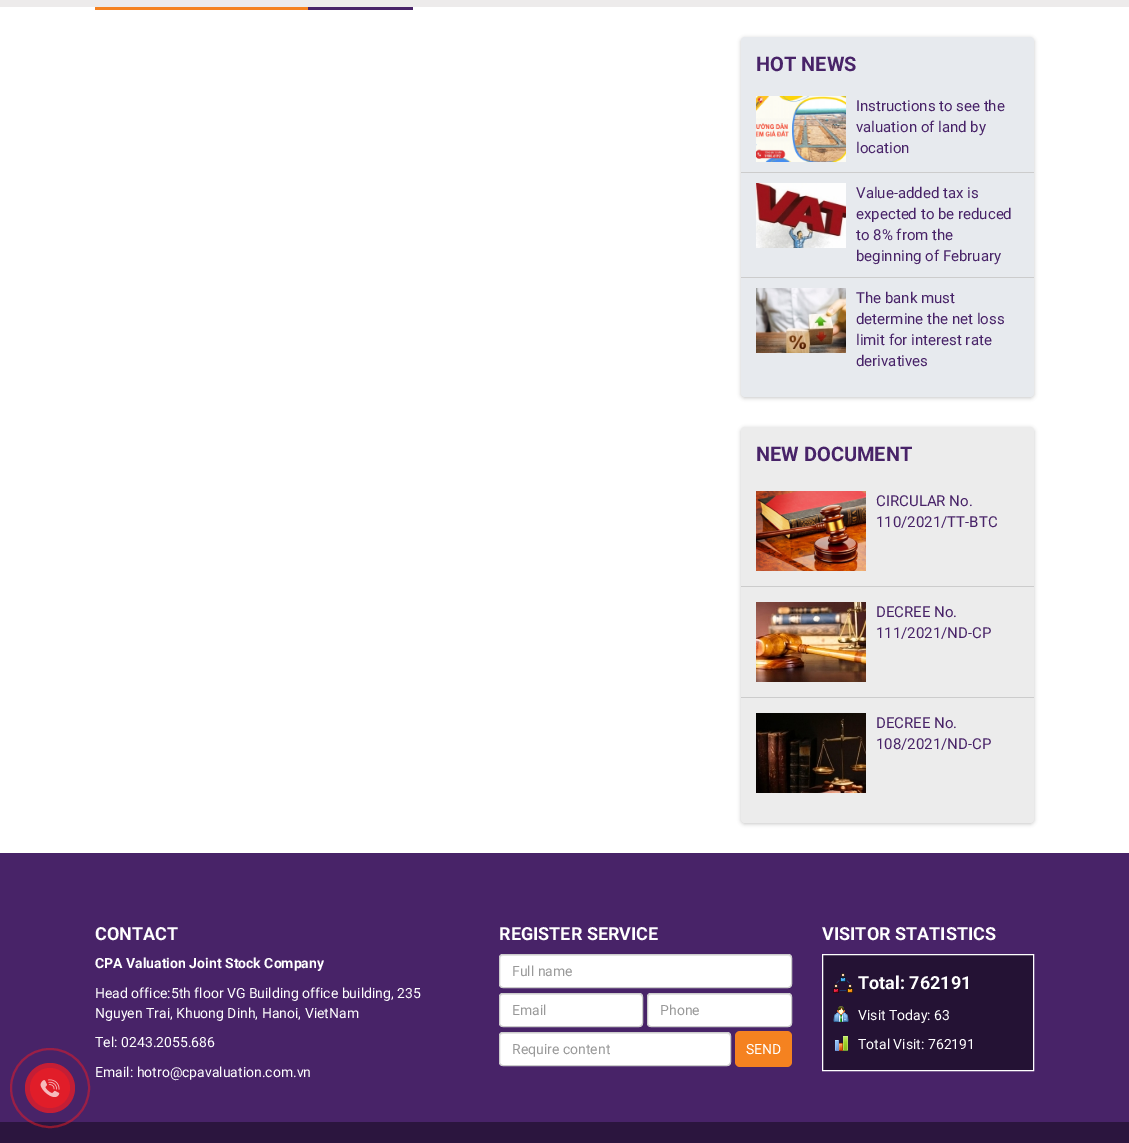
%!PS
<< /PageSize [1129 1143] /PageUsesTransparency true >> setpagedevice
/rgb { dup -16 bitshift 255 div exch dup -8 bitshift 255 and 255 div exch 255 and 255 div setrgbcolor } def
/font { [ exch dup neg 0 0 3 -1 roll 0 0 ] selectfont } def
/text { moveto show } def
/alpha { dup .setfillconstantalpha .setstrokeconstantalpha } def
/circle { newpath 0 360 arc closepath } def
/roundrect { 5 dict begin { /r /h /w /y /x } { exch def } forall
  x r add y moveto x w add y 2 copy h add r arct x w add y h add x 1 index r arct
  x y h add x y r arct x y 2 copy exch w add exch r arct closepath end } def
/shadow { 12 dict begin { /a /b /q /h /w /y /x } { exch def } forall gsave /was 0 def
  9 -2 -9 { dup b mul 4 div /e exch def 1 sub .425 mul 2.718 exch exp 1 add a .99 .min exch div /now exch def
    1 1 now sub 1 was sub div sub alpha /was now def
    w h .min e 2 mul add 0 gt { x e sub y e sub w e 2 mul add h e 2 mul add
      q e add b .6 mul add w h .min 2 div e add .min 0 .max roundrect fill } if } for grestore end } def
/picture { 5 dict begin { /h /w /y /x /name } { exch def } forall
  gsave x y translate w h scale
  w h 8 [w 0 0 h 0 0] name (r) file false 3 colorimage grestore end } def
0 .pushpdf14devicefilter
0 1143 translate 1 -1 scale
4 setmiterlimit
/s1 { /Roboto-Bold 20 font 16#482368 rgb } def
/s2 { /Roboto-Regular 15 font 16#482368 rgb } def
/s3 { /Roboto-Bold 18 font 16#FFFFFF rgb } def
/s4 { /Roboto-Bold 14 font 16#FFFFFF rgb } def
/s5 { /Roboto-Regular 14 font 16#FFFFFF rgb } def
/s6 { /Roboto-Regular 14 font 16#999999 rgb } def
16#FFFFFF rgb
0 0 1129 1143 rectfill
16#F58220 rgb
95 7 213 3 rectfill
16#482368 rgb
308 7 105 3 rectfill
16#EDEBEB rgb
0 0 1129 7 rectfill
16#000000 rgb
741 38 293 360 4 2 0.22 shadow
16#E7EAEE rgb
741 37 293 360 4 roundrect fill
s1
(HOT NEWS) 756 71 text
16#CCCCCC rgb
741 172 293 1 rectfill
(pic1.raw) 756 96 90 66 picture
s2
(Instructions to see the) 856 111 text
(valuation of land by) 856 132 text
(location) 856 153 text
16#CCCCCC rgb
741 277 293 1 rectfill
(pic2.raw) 756 183 90 65 picture
s2
(Value-added tax is) 856 198 text
(expected to be reduced) 856 219 text
(to 8% from the) 856 240 text
(beginning of February) 856 261 text
(pic3.raw) 756 288 90 65 picture
(The bank must) 856 303 text
(determine the net loss) 856 324 text
(limit for interest rate) 856 345 text
(derivatives) 856 366 text
16#000000 rgb
741 428 293 396 4 2 0.22 shadow
16#ECECEC rgb
741 427 293 396 4 roundrect fill
s1
(NEW DOCUMENT) 756 461 text
16#CCCCCC rgb
741 586 293 1 rectfill
(pic4.raw) 756 491 110 80 picture
s2
(CIRCULAR No.) 876 506 text
(110/2021/TT-BTC) 876 527 text
16#CCCCCC rgb
741 697 293 1 rectfill
(pic5.raw) 756 602 110 80 picture
s2
(DECREE No.) 876 617 text
(111/2021/ND-CP) 876 638 text
(pic6.raw) 756 713 110 80 picture
(DECREE No.) 876 728 text
(108/2021/ND-CP) 876 749 text
0 853 1129 269 rectfill
s3
(CONTACT) 95 940 text
s4
(CPA Valuation Joint Stock Company) 95 968 text
s5
(Head office:5th floor VG Building office building, 235) 95 998 text
(Nguyen Trai, Khuong Dinh, Hanoi, VietNam) 95 1018 text
(Tel: 0243.2055.686) 95 1047 text
(Email: hotro@cpavaluation.com.vn) 95 1077 text
s3
(REGISTER SERVICE) 499 940 text
499 954 293 34 4 roundrect fill
16#ECECEC rgb
503 956 moveto 788 956 lineto 790 956 791 957 791 959 curveto 791 957 790 955 788 955 curveto 503 955 lineto 501 955 500 957 500 959 curveto 500 957 501 956 503 956 curveto closepath fill
16#CCCCCC rgb
499.5 954.5 292 33 3.5 roundrect stroke
s6
(Full name) 512 976 text
16#FFFFFF rgb
499 993 144 34 4 roundrect fill
16#ECECEC rgb
503 995 moveto 639 995 lineto 641 995 642 996 642 998 curveto 642 997 lineto 642 995 641 994 639 994 curveto 503 994 lineto 501 994 500 995 500 997 curveto 500 998 lineto 500 996 501 995 503 995 curveto closepath fill
16#CCCCCC rgb
499.5 993.5 143 33 3.5 roundrect stroke
s6
(Email) 512 1015 text
16#FFFFFF rgb
647 993 145 34 4 roundrect fill
16#ECECEC rgb
651 995 moveto 788 995 lineto 790 995 791 996 791 998 curveto 791 997 lineto 791 995 790 994 788 994 curveto 651 994 lineto 649 994 648 995 648 997 curveto 648 998 lineto 648 996 649 995 651 995 curveto closepath fill
16#CCCCCC rgb
647.5 993.5 144 33 3.5 roundrect stroke
s6
(Phone) 660 1015 text
16#FFFFFF rgb
499 1032 232 34 4 roundrect fill
16#ECECEC rgb
503 1034 moveto 727 1034 lineto 729 1034 730 1035 730 1037 curveto 730 1035 729 1033 727 1033 curveto 503 1033 lineto 501 1033 500 1035 500 1037 curveto 500 1035 501 1034 503 1034 curveto closepath fill
16#CCCCCC rgb
499.5 1032.5 231 33 3.5 roundrect stroke
s6
(Require content) 512 1054 text
16#F58220 rgb
735 1031 57 36 5 roundrect fill
s5
(SEND) 746 1054 text
s3
(VISITOR STATISTICS) 822 940 text
16#241234 rgb
822.5 954.5 moveto 1033.5 954.5 lineto 1033.5 1070.5 lineto 822.5 1070.5 lineto closepath gsave fill grestore
16#FFFFFF rgb
stroke
(pic7.raw) 833 973 20 20 picture
(Total: 762191) 858 989 text
(pic8.raw) 833 1006 16 16 picture
s5
(Visit Today: 63) 858 1020 text
(pic9.raw) 835 1036 13 15 picture
(Total Visit: 762191) 858 1049 text
16#2B153E rgb
0 1122 1129 21 rectfill
0.5 alpha
16#ED1C24 rgb
2 setlinewidth
50 1088 39 circle stroke
1 alpha
16#C41E35 rgb
50 1088 25 circle fill
16#E11D29 rgb
50 1088 20 circle fill
(pic10.raw) 40 1079 20 18 picture
.poppdf14devicefilter showpage
